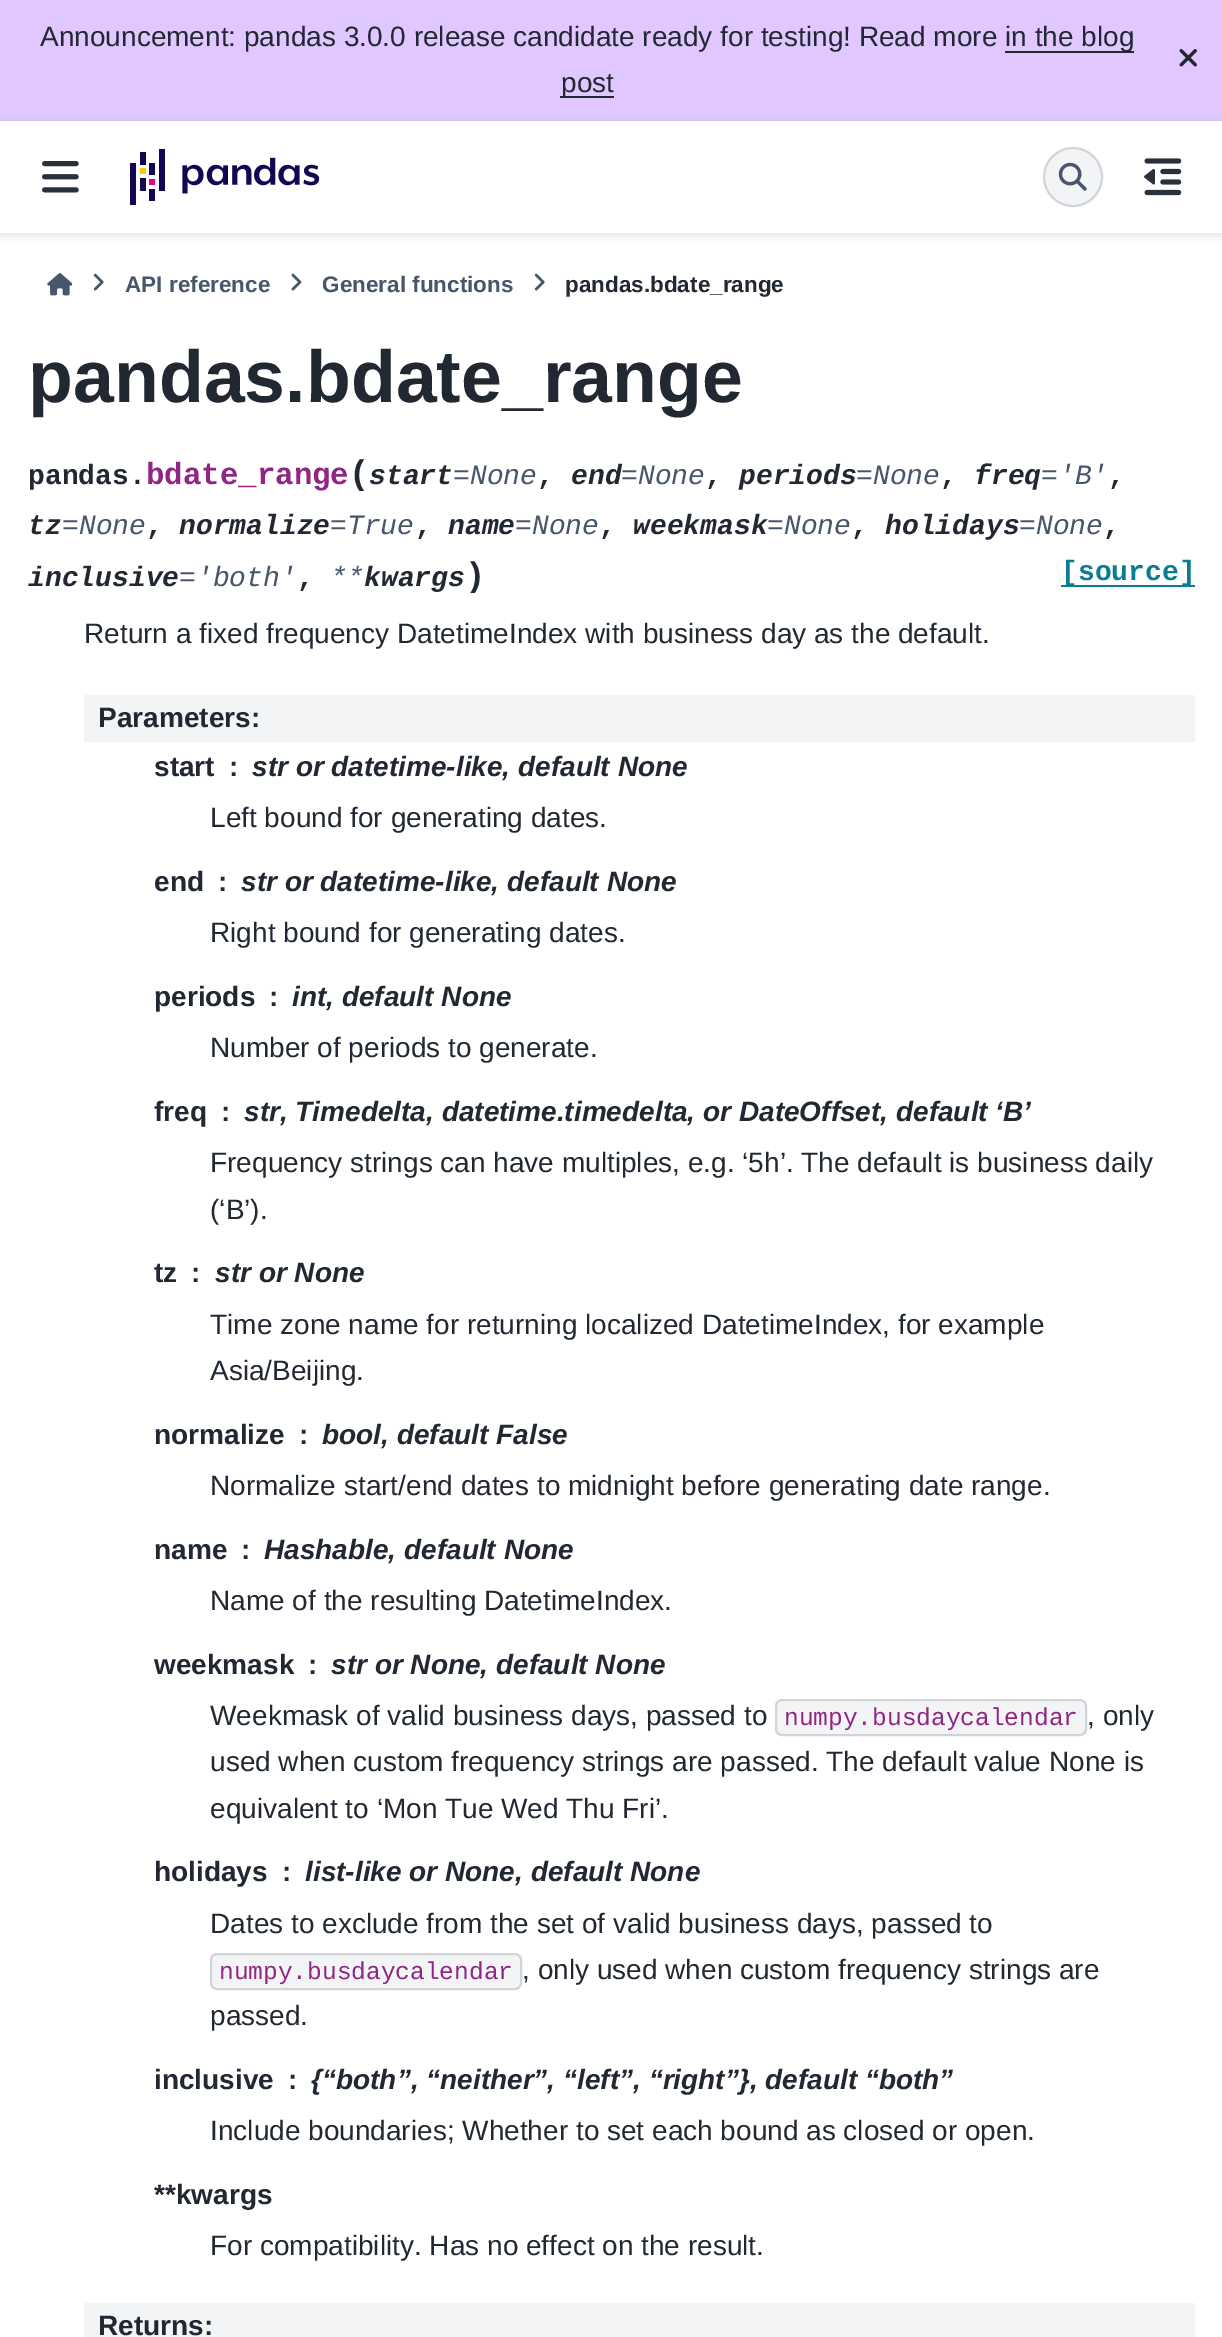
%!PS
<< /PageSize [1222 2337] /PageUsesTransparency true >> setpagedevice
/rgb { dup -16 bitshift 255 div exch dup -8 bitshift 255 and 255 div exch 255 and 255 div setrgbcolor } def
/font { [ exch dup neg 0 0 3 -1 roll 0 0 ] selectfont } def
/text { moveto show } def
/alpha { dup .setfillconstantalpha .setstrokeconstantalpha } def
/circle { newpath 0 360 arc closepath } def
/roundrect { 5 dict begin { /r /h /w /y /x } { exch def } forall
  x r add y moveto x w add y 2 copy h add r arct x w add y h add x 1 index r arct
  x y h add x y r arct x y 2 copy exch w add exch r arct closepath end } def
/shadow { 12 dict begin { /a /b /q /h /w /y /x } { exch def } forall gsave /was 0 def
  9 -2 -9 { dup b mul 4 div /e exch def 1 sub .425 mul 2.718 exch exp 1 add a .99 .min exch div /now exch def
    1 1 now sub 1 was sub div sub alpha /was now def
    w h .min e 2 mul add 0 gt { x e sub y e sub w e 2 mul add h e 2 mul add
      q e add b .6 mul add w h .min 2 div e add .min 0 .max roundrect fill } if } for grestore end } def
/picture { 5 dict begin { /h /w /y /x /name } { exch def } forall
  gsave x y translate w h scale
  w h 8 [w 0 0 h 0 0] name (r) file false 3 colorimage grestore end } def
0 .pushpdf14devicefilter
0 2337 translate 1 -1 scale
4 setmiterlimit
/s1 { /LiberationSans-Regular 28 font 16#222832 rgb } def
/s2 { /LiberationSans-Bold 22.5 font 16#48566B rgb } def
/s3 { /LiberationSans-Bold 22.5 font 16#222832 rgb } def
/s4 { /LiberationSans-Bold 73.5 font 16#222832 rgb } def
/s5 { /LiberationMono-Bold 28 font 16#222832 rgb } def
/s6 { /LiberationMono-Bold 30.75 font 16#912583 rgb } def
/s7 { /LiberationMono-Bold 34 font 16#222832 rgb } def
/s8 { /LiberationMono-BoldItalic 28 font 16#222832 rgb } def
/s9 { /LiberationMono-Italic 28 font 16#48566B rgb } def
/s10 { /LiberationMono-Bold 28 font 16#0A7D91 rgb } def
/s11 { /LiberationSans-Bold 28 font 16#222832 rgb } def
/s12 { /LiberationSans-BoldItalic 28 font 16#222832 rgb } def
/s13 { /LiberationMono-Regular 24.5 font 16#912583 rgb } def
16#FFFFFF rgb
0 0 1222 2337 rectfill
16#E0C7FF rgb
0 0 1222 121 rectfill
s1
(Announcement: pandas 3.0.0 release candidate ready for testing! Read more) 40 46 text
1005 51 129 2 rectfill
(in the blog) 1005 46 text
560 96 54 2 rectfill
(post) 561 92 text
(pic1.raw) 1179 49 18 18 picture
16#000000 rgb
0 124 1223 112 0 3.5 0.1 shadow
16#FFFFFF rgb
0 121 1222 112 rectfill
(pic2.raw) 42 161 37 32 picture
(pic3.raw) 130 149 190 56 picture
16#F3F4F5 rgb
1073 177 29 circle gsave fill grestore
16#D1D5DA rgb
2 setlinewidth
stroke
(pic4.raw) 1058 162 29 29 picture
(pic5.raw) 1144 158 38 38 picture
(pic6.raw) 47 273 25 23 picture
(pic7.raw) 93 273 11 18 picture
s2
(API reference) 125 292 text
(pic8.raw) 291 273 11 18 picture
(General functions) 322 292 text
(pic7.raw) 534 273 11 18 picture
s3
(pandas.bdate_range) 565 292 text
s4
(pandas.bdate_range) 28 402 text
s5
(pandas.) 28 484 text
s6
(bdate_range) 146 484 text
s7
(\() 349 484 text
s8
(start) 369 484 text
s9
(=None) 453 484 text
s5
(,) 537 484 text
s8
(end) 571 484 text
s9
(=None) 621 484 text
s5
(,) 705 484 text
s8
(periods) 739 484 text
s9
(=None) 856 484 text
s5
(,) 940 484 text
s8
(freq) 974 484 text
s9
(='B') 1041 484 text
s5
(,) 1108 484 text
s8
(tz) 28 534 text
s9
(=None) 62 534 text
s5
(,) 146 534 text
s8
(normalize) 179 534 text
s9
(=True) 330 534 text
s5
(,) 415 534 text
s8
(name) 448 534 text
s9
(=None) 515 534 text
s5
(,) 599 534 text
s8
(weekmask) 633 534 text
s9
(=None) 767 534 text
s5
(,) 851 534 text
s8
(holidays) 885 534 text
s9
(=None) 1019 534 text
s5
(,) 1103 534 text
s8
(inclusive) 28 586 text
s9
(='both') 179 586 text
s5
(,) 297 586 text
s9
(**) 330 586 text
s8
(kwargs) 364 586 text
s7
(\)) 465 586 text
16#0A7D91 rgb
1061 585 134 2 rectfill
s10
([source]) 1061 580 text
s1
(Return a fixed frequency DatetimeIndex with business day as the default.) 84 643 text
16#F3F4F5 rgb
84 695 1111 47 rectfill
s11
(Parameters:) 98 727 text
(start) 154 776 text
(:) 229 776 text
s12
(str or datetime-like, default None) 252 776 text
s1
(Left bound for generating dates.) 210 827 text
s11
(end) 154 891 text
(:) 218 891 text
s12
(str or datetime-like, default None) 241 891 text
s1
(Right bound for generating dates.) 210 942 text
s11
(periods) 154 1006 text
(:) 269 1006 text
s12
(int, default None) 292 1006 text
s1
(Number of periods to generate.) 210 1057 text
s11
(freq) 154 1121 text
(:) 221 1121 text
s12
(str, Timedelta, datetime.timedelta, or DateOffset, default ‘B’) 244 1121 text
s1
(Frequency strings can have multiples, e.g. ‘5h’. The default is business daily) 210 1172 text
(\(‘B’\).) 210 1219 text
s11
(tz) 154 1282 text
(:) 191 1282 text
s12
(str or None) 215 1282 text
s1
(Time zone name for returning localized DatetimeIndex, for example) 210 1334 text
(Asia/Beijing.) 210 1380 text
s11
(normalize) 154 1444 text
(:) 299 1444 text
s12
(bool, default False) 322 1444 text
s1
(Normalize start/end dates to midnight before generating date range.) 210 1495 text
s11
(name) 154 1559 text
(:) 241 1559 text
s12
(Hashable, default None) 264 1559 text
s1
(Name of the resulting DatetimeIndex.) 210 1610 text
s11
(weekmask) 154 1674 text
(:) 308 1674 text
s12
(str or None, default None) 331 1674 text
s1
(Weekmask of valid business days, passed to) 210 1725 text
16#F3F4F5 rgb
776 1700 310 35 6 roundrect gsave fill grestore
16#D1D5DA rgb
stroke
s13
(numpy.busdaycalendar) 784 1725 text
s1
(, only) 1087 1725 text
(used when custom frequency strings are passed. The default value None is) 210 1771 text
(equivalent to ‘Mon Tue Wed Thu Fri’.) 210 1818 text
s11
(holidays) 154 1881 text
(:) 282 1881 text
s12
(list-like or None, default None) 305 1881 text
s1
(Dates to exclude from the set of valid business days, passed to) 210 1933 text
16#F3F4F5 rgb
211 1954 310 35 6 roundrect gsave fill grestore
16#D1D5DA rgb
stroke
s13
(numpy.busdaycalendar) 219 1979 text
s1
(, only used when custom frequency strings are) 522 1979 text
(passed.) 210 2025 text
s11
(inclusive) 154 2089 text
(:) 288 2089 text
s12
({“both”, “neither”, “left”, “right”}, default “both”) 311 2089 text
s1
(Include boundaries; Whether to set each bound as closed or open.) 210 2140 text
s11
(**kwargs) 154 2204 text
s1
(For compatibility. Has no effect on the result.) 210 2255 text
16#F3F4F5 rgb
84 2303 1111 34 rectfill
s11
(Returns:) 98 2335 text
.poppdf14devicefilter showpage
